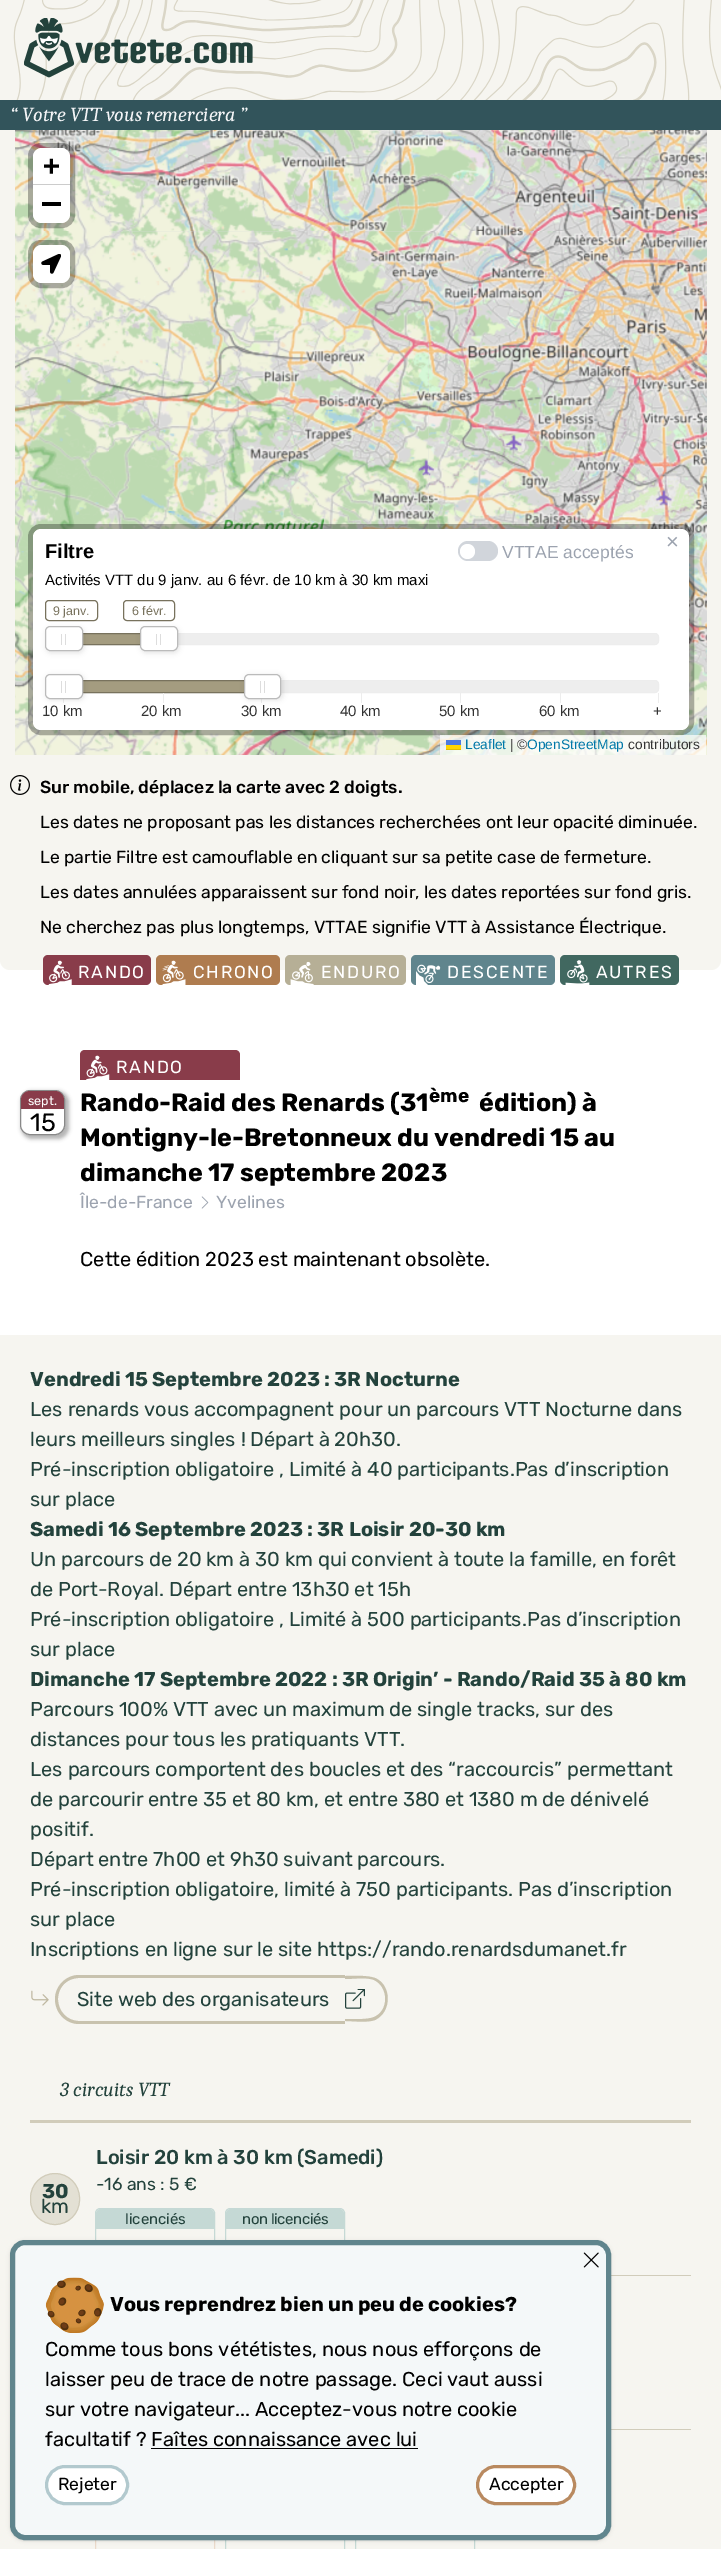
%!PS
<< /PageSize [721 2549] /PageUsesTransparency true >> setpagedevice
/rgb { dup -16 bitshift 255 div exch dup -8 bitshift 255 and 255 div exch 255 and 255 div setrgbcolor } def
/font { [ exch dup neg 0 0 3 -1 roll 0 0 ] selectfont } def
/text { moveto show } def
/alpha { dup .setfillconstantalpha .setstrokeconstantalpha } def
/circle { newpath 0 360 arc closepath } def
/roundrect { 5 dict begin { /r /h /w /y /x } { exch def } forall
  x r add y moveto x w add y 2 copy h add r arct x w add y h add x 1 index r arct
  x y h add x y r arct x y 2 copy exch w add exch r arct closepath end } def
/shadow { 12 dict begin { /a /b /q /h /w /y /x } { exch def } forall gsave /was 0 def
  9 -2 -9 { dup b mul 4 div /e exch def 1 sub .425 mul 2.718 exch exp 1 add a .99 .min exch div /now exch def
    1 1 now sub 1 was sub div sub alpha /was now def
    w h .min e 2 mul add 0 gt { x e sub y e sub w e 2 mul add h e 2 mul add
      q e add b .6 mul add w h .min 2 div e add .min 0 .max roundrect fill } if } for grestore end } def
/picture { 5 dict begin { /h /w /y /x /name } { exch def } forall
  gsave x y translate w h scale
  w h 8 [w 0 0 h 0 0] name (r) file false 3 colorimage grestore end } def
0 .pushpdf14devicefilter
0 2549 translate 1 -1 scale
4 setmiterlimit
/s1 { /Caladea-Italic 20 font 16#F3F4F6 rgb } def
/s2 { /DejaVuSansMono-Bold 28 font 16#000000 rgb } def
/s3 { /DejaVuSansMono-Bold 35 font 16#000000 rgb } def
/s4 { /LiberationSans-Regular 22 font 16#9CA3AF rgb } def
/s5 { /LiberationSans-Bold 20 font 16#000000 rgb } def
/s6 { /LiberationSans-Regular 17.5 font 16#9CA3AF rgb } def
/s7 { /LiberationSans-Regular 15 font 16#000000 rgb } def
/s8 { /LiberationSans-Regular 12.5 font 16#78725D rgb } def
/s9 { /LiberationSans-Regular 15 font 16#333333 rgb } def
/s10 { /LiberationSans-Regular 13.75 font 16#0078A8 rgb } def
/s11 { /LiberationSans-Regular 13.75 font 16#333333 rgb } def
/s12 { /Rubik-Medium 17.5 font 16#000000 rgb } def
/s13 { /Rubik-Regular 17.5 font 16#000000 rgb } def
/s14 { /Rubik-Regular 12.5 font 16#FFFFFF rgb } def
/s15 { /Rubik-Regular 25 font 16#000000 rgb } def
/s16 { /Rubik-Bold 25 font 16#000000 rgb } def
/s17 { /Rubik-Bold 19 font 16#000000 rgb } def
/s18 { /Rubik-Regular 17.5 font 16#9CA3AF rgb } def
/s19 { /Rubik-Regular 20 font 16#000000 rgb } def
/s20 { /Rubik-Bold 20 font 16#23423C rgb } def
/s21 { /Rubik-Regular 20 font 16#23423C rgb } def
/s22 { /Caladea-Italic 20 font 16#23423C rgb } def
/s23 { /Rubik-Medium 20 font 16#23423C rgb } def
/s24 { /Rubik-Regular 17.5 font 16#23423C rgb } def
/s25 { /Rubik-Regular 15 font 16#23423C rgb } def
/s26 { /Rubik-Bold 20 font 16#000000 rgb } def
16#FFFFFF rgb
0 0 721 2549 rectfill
16#F6F5F0 rgb
0 0 721 100 rectfill
(pic1.raw) 13 0 708 100 picture
(pic2.raw) 24 18 229 60 picture
16#32545B rgb
0 100 721 30 rectfill
s1
(“ Votre VTT vous remerciera ”) 10 121 text
16#F6F5F0 rgb
0 130 721 625 rectfill
16#DDDDDD rgb
109 231 320 298 rectfill
(pic3.raw) 15 130 94 101 picture
(pic4.raw) 109 130 320 101 picture
(pic5.raw) 429 130 278 101 picture
(pic6.raw) 15 231 94 320 picture
(pic7.raw) 109 231 320 298 picture
(pic8.raw) 429 231 278 320 picture
(pic9.raw) 15 551 94 204 picture
(pic10.raw) 109 730 320 25 picture
(pic11.raw) 429 551 278 204 picture
0.3 alpha
16#000000 rgb
5 setlinewidth
30.5 145.5 42 80 10.5 roundrect stroke
1 alpha
16#FFFFFF rgb
42 148 moveto 61 148 lineto 66 148 70 152 70 157 curveto 70 184 lineto 33 184 lineto 33 157 lineto 33 152 37 148 42 148 curveto closepath fill
16#CCCCCC rgb
33 184 37 1 rectfill
s2
(+) 43 175 text
16#FFFFFF rgb
33 185 moveto 70 185 lineto 70 214 lineto 70 219 66 223 61 223 curveto 42 223 lineto 37 223 33 219 33 214 curveto closepath fill
s3
(−) 41 215 text
0.3 alpha
30.5 242.5 42 43 10.5 roundrect stroke
1 alpha
16#FFFFFF rgb
33 245 37 38 9 roundrect fill
(pic12.raw) 41 254 20 20 picture
0.3 alpha
16#000000 rgb
30.5 526.5 661 206 10.5 roundrect stroke
1 alpha
16#FFFFFF rgb
33 529 656 201 8 roundrect fill
s4
(×) 666 549 text
s5
(Filtre) 45 558 text
16#D1D5DB rgb
458 541 40 20 10 roundrect fill
16#FFFFFF rgb
467.5 551.5 7.5 circle fill
s6
(VTTAE acceptés) 502 558 text
s7
(Activités VTT du 9 janv. au 6 févr. de 10 km à 30 km maxi) 45 585 text
16#EEEEEE rgb
63.5 633.5 595 11 3.5 roundrect gsave fill grestore
16#EDEDED rgb
1 setlinewidth
stroke
16#A49C80 rgb
83 634 57 10 rectfill
16#78725D rgb
63.5 633.5 94 11 rectstroke
16#000000 rgb
46 628 38 25 5 2.5 0.1 shadow
16#FFFFFF rgb
45.5 626.5 37 24 4.5 roundrect gsave fill grestore
16#BBBBBB rgb
stroke
16#78725D rgb
45.5 600.5 52 20 3.5 roundrect stroke
s8
(9 janv.) 53 615 text
16#DDDDDD rgb
61 634 1 11 rectfill
65 634 1 11 rectfill
16#000000 rgb
141 628 38 25 5 2.5 0.1 shadow
16#FFFFFF rgb
140.5 626.5 37 24 4.5 roundrect gsave fill grestore
16#BBBBBB rgb
stroke
16#78725D rgb
123.5 600.5 51 20 3.5 roundrect stroke
(6 févr.) 132 615 text
16#DDDDDD rgb
156 634 1 11 rectfill
160 634 1 11 rectfill
16#EEEEEE rgb
63.5 680.5 595 12 3.5 roundrect gsave fill grestore
16#EDEDED rgb
stroke
16#A49C80 rgb
83 681 161 11 rectfill
16#78725D rgb
63.5 680.5 197 12 rectstroke
16#EDEDED rgb
63 693 1 10 rectfill
16#000000 rgb
46 675 38 25 5 2.5 0.1 shadow
16#FFFFFF rgb
45.5 674.5 37 24 4.5 roundrect gsave fill grestore
16#BBBBBB rgb
stroke
16#DDDDDD rgb
61 681 1 12 rectfill
65 681 1 12 rectfill
16#EDEDED rgb
261 693 1 10 rectfill
16#000000 rgb
245 675 38 25 5 2.5 0.1 shadow
16#FFFFFF rgb
244.5 674.5 36 24 4.5 roundrect gsave fill grestore
16#BBBBBB rgb
stroke
16#DDDDDD rgb
260 681 1 12 rectfill
264 681 1 12 rectfill
s9
(10 km) 42 716 text
16#EDEDED rgb
163 693 1 10 rectfill
s9
(20 km) 141 716 text
(30 km) 241 716 text
16#EDEDED rgb
361 693 1 10 rectfill
s9
(40 km) 340 716 text
16#EDEDED rgb
460 693 1 10 rectfill
s9
(50 km) 439 716 text
16#EDEDED rgb
560 693 1 10 rectfill
s9
(60 km) 539 716 text
16#EDEDED rgb
658 693 1 10 rectfill
s9
(+) 653 716 text
0.7 alpha
16#FFFFFF rgb
440 735 266 20 rectfill
1 alpha
s10
(Leaflet) 465 749 text
16#4C7BE1 rgb
446 740 15 5 rectfill
16#FFD500 rgb
446 745 15 4 rectfill
16#E0BC00 rgb
446 749 15 1 rectfill
s11
(| ©) 510 749 text
s10
(OpenStreetMap) 527 749 text
s11
(contributors) 628 749 text
16#F6F5F0 rgb
0 755 moveto 721 755 lineto 721 960 lineto 721 965.5 716.5 970 711 970 curveto 10 970 lineto 4.5 970 0 965.5 0 960 curveto closepath fill
(pic13.raw) 10 775 20 20 picture
s12
(Sur mobile, déplacez la carte avec 2 doigts.) 40 793 text
s13
(Les dates ne proposant pas les distances recherchées ont leur opacité diminuée.) 40 828 text
(Le partie Filtre est camouflable en cliquant sur sa petite case de fermeture.) 40 863 text
(Les dates annulées apparaissent sur fond noir, les dates reportées sur fond gris.) 40 898 text
(Ne cherchez pas plus longtemps, VTTAE signifie VTT à Assistance Électrique.) 40 933 text
16#893C4A rgb
43 955 108 30 5 roundrect fill
(pic14.raw) 48 960 24 25 picture
16#FFFFFF rgb
78 978 moveto 1.75 0 (RANDO) ashow
16#AF7C4F rgb
156 955 124 30 5 roundrect fill
(pic15.raw) 162 960 24 25 picture
16#FFFFFF rgb
193 978 moveto 1.75 0 (CHRONO) ashow
16#B6AF96 rgb
285 955 121 30 5 roundrect fill
(pic16.raw) 290 961 24 24 picture
16#FFFFFF rgb
321 978 moveto 1.75 0 (ENDURO) ashow
16#60858D rgb
411 955 144 30 5 roundrect fill
(pic17.raw) 416 964 25 21 picture
16#FFFFFF rgb
447 978 moveto 1.75 0 (DESCENTE) ashow
16#416860 rgb
560 955 119 30 5 roundrect fill
(pic18.raw) 565 960 25 25 picture
16#FFFFFF rgb
596 978 moveto 1.75 0 (AUTRES) ashow
16#000000 rgb
21 1091 48 48 11 2 0.3 shadow
16#FFFFFF rgb
20.5 1090.5 44 44 9.5 roundrect gsave fill grestore
16#888888 rgb
stroke
16#893C4A rgb
30 1091 moveto 55 1091 lineto 60 1091 64 1095 64 1100 curveto 64 1109 lineto 21 1109 lineto 21 1100 lineto 21 1095 25 1091 30 1091 curveto closepath fill
s14
(sept.) 28 1105 text
s15
(15) 30 1131 text
16#893C4A rgb
85 1050 moveto 235 1050 lineto 238 1050 240 1052 240 1055 curveto 240 1080 lineto 80 1080 lineto 80 1055 lineto 80 1052 82 1050 85 1050 curveto closepath fill
(pic19.raw) 86 1055 24 25 picture
/Rubik-Regular 17.5 font
16#FFFFFF rgb
116 1073 moveto 1.75 0 (RANDO) ashow
s16
(Rando-Raid des Renards \(31) 80 1111 text
s17
(ème) 429 1102 text
s16
(édition\) à) 479 1111 text
(Montigny-le-Bretonneux du vendredi 15 au) 80 1146 text
(dimanche 17 septembre 2023) 80 1181 text
s18
(Île-de-France) 80 1208 text
(pic20.raw) 201 1196 8 13 picture
(Yvelines) 216 1208 text
s19
(Cette édition 2023 est maintenant obsolète.) 80 1266 text
16#F6F5F0 rgb
0 1335 721 1214 rectfill
s20
(Vendredi 15 Septembre 2023 : 3R Nocturne) 30 1386 text
s21
(Les renards vous accompagnent pour un parcours VTT Nocturne dans) 30 1416 text
(leurs meilleurs singles ! Départ à 20h30.) 30 1446 text
(Pré-inscription obligatoire , Limité à 40 participants.Pas d’inscription) 30 1476 text
(sur place) 30 1506 text
s20
(Samedi 16 Septembre 2023 : 3R Loisir 20-30 km) 30 1536 text
s21
(Un parcours de 20 km à 30 km qui convient à toute la famille, en forêt) 30 1566 text
(de Port-Royal. Départ entre 13h30 et 15h) 30 1596 text
(Pré-inscription obligatoire , Limité à 500 participants.Pas d’inscription) 30 1626 text
(sur place) 30 1656 text
s20
(Dimanche 17 Septembre 2022 : 3R Origin’ - Rando/Raid 35 à 80 km) 30 1686 text
s21
(Parcours 100% VTT avec un maximum de single tracks, sur des) 30 1716 text
(distances pour tous les pratiquants VTT.) 30 1746 text
(Les parcours comportent des boucles et des “raccourcis” permettant) 30 1776 text
(de parcourir entre 35 et 80 km, et entre 380 et 1380 m de dénivelé) 30 1806 text
(positif.) 30 1836 text
(Départ entre 7h00 et 9h30 suivant parcours.) 30 1866 text
(Pré-inscription obligatoire, limité à 750 participants. Pas d’inscription) 30 1896 text
(sur place) 30 1926 text
(Inscriptions en ligne sur le site https://rando.renardsdumanet.fr) 30 1956 text
(pic21.raw) 31 1990 18 16 picture
16#C8C2AE rgb
79 1975 moveto 345 1975 lineto 345 2024 lineto 79 2024 lineto 66 2024 55 2013 55 1999 curveto 55 1986 66 1975 79 1975 curveto closepath 79 1978 moveto 345 1978 lineto 345 2021 lineto 79 2021 lineto 67 2021 58 2011 58 1999 curveto 58 1987 67 1978 79 1978 curveto closepath eofill
s21
(Site web des organisateurs) 77 2006 text
16#C8C2AE rgb
345 1976 moveto 353 1976 367 1975 375 1978 curveto 392 1985 392 2012 375 2020 curveto 367 2023 353 2021 345 2021 curveto closepath 345 1979 moveto 353 1979 367 1977 374 1980 curveto 389 1987 389 2011 374 2017 curveto 367 2020 353 2019 345 2019 curveto closepath eofill
(pic22.raw) 345 1989 20 20 picture
s22
(3 circuits VTT) 60 2096 text
16#D1CCBA rgb
30 2120 661 3 rectfill
16#E3E0D4 rgb
30.5 2173.5 49 51 24.5 roundrect gsave fill grestore
16#D1CCBA rgb
stroke
s20
(30) 42 2198 text
s21
(km) 41 2213 text
s23
(Loisir 20 km à 30 km \(Samedi\)) 96 2164 text
s24
(-16 ans : 5 €) 96 2190 text
16#C5D9D5 rgb
95.5 2208.5 119 46 4.5 roundrect stroke
101 2209 moveto 209 2209 lineto 212 2209 214 2211 214 2214 curveto 214 2229 lineto 96 2229 lineto 96 2214 lineto 96 2211 98 2209 101 2209 curveto closepath fill
s25
(licenciés) 125 2224 text
16#C5D9D5 rgb
225.5 2208.5 119 46 4.5 roundrect stroke
231 2209 moveto 339 2209 lineto 342 2209 344 2211 344 2214 curveto 344 2229 lineto 226 2229 lineto 226 2214 lineto 226 2211 228 2209 231 2209 curveto closepath fill
16#23423C rgb
242 2224 moveto -0.4 0 (non licenciés) ashow
16#D1CCBA rgb
611 2275 80 1 rectfill
611 2429 80 1 rectfill
16#EBDACB rgb
95.5 2515.5 119 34 rectstroke
16#C5D9D5 rgb
225.5 2515.5 119 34 rectstroke
355.5 2515.5 119 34 rectstroke
16#000000 rgb
11 2243 599 297 14 1 0.1 shadow
10 2241 601 300 15 2 0.1 shadow
16#F4F8F9 rgb
12.5 2242.5 596 295 12.5 roundrect gsave fill grestore
16#60858D rgb
5 setlinewidth
stroke
(pic23.raw) 583 2252 16 16 picture
(pic24.raw) 45 2277 59 56 picture
s26
(Vous reprendrez bien un peu de cookies?) 110 2311 text
s19
(Comme tous bons vététistes, nous nous efforçons de) 45 2356 text
(laisser peu de trace de notre passage. Ceci vaut aussi) 45 2386 text
(sur votre navigateur... Acceptez-vous notre cookie) 45 2416 text
(facultatif ? Faîtes connaissance avec lui) 45 2446 text
151 2448 267 1 rectfill
16#FFFFFF rgb
46.5 2466.5 81 37 18.5 roundrect gsave fill grestore
16#B2C9CE rgb
3 setlinewidth
stroke
s13
(Rejeter) 58 2490 text
16#FFFFFF rgb
477.5 2466.5 97 37 18.5 roundrect gsave fill grestore
16#B98A60 rgb
stroke
s13
(Accepter) 489 2490 text
.poppdf14devicefilter showpage
